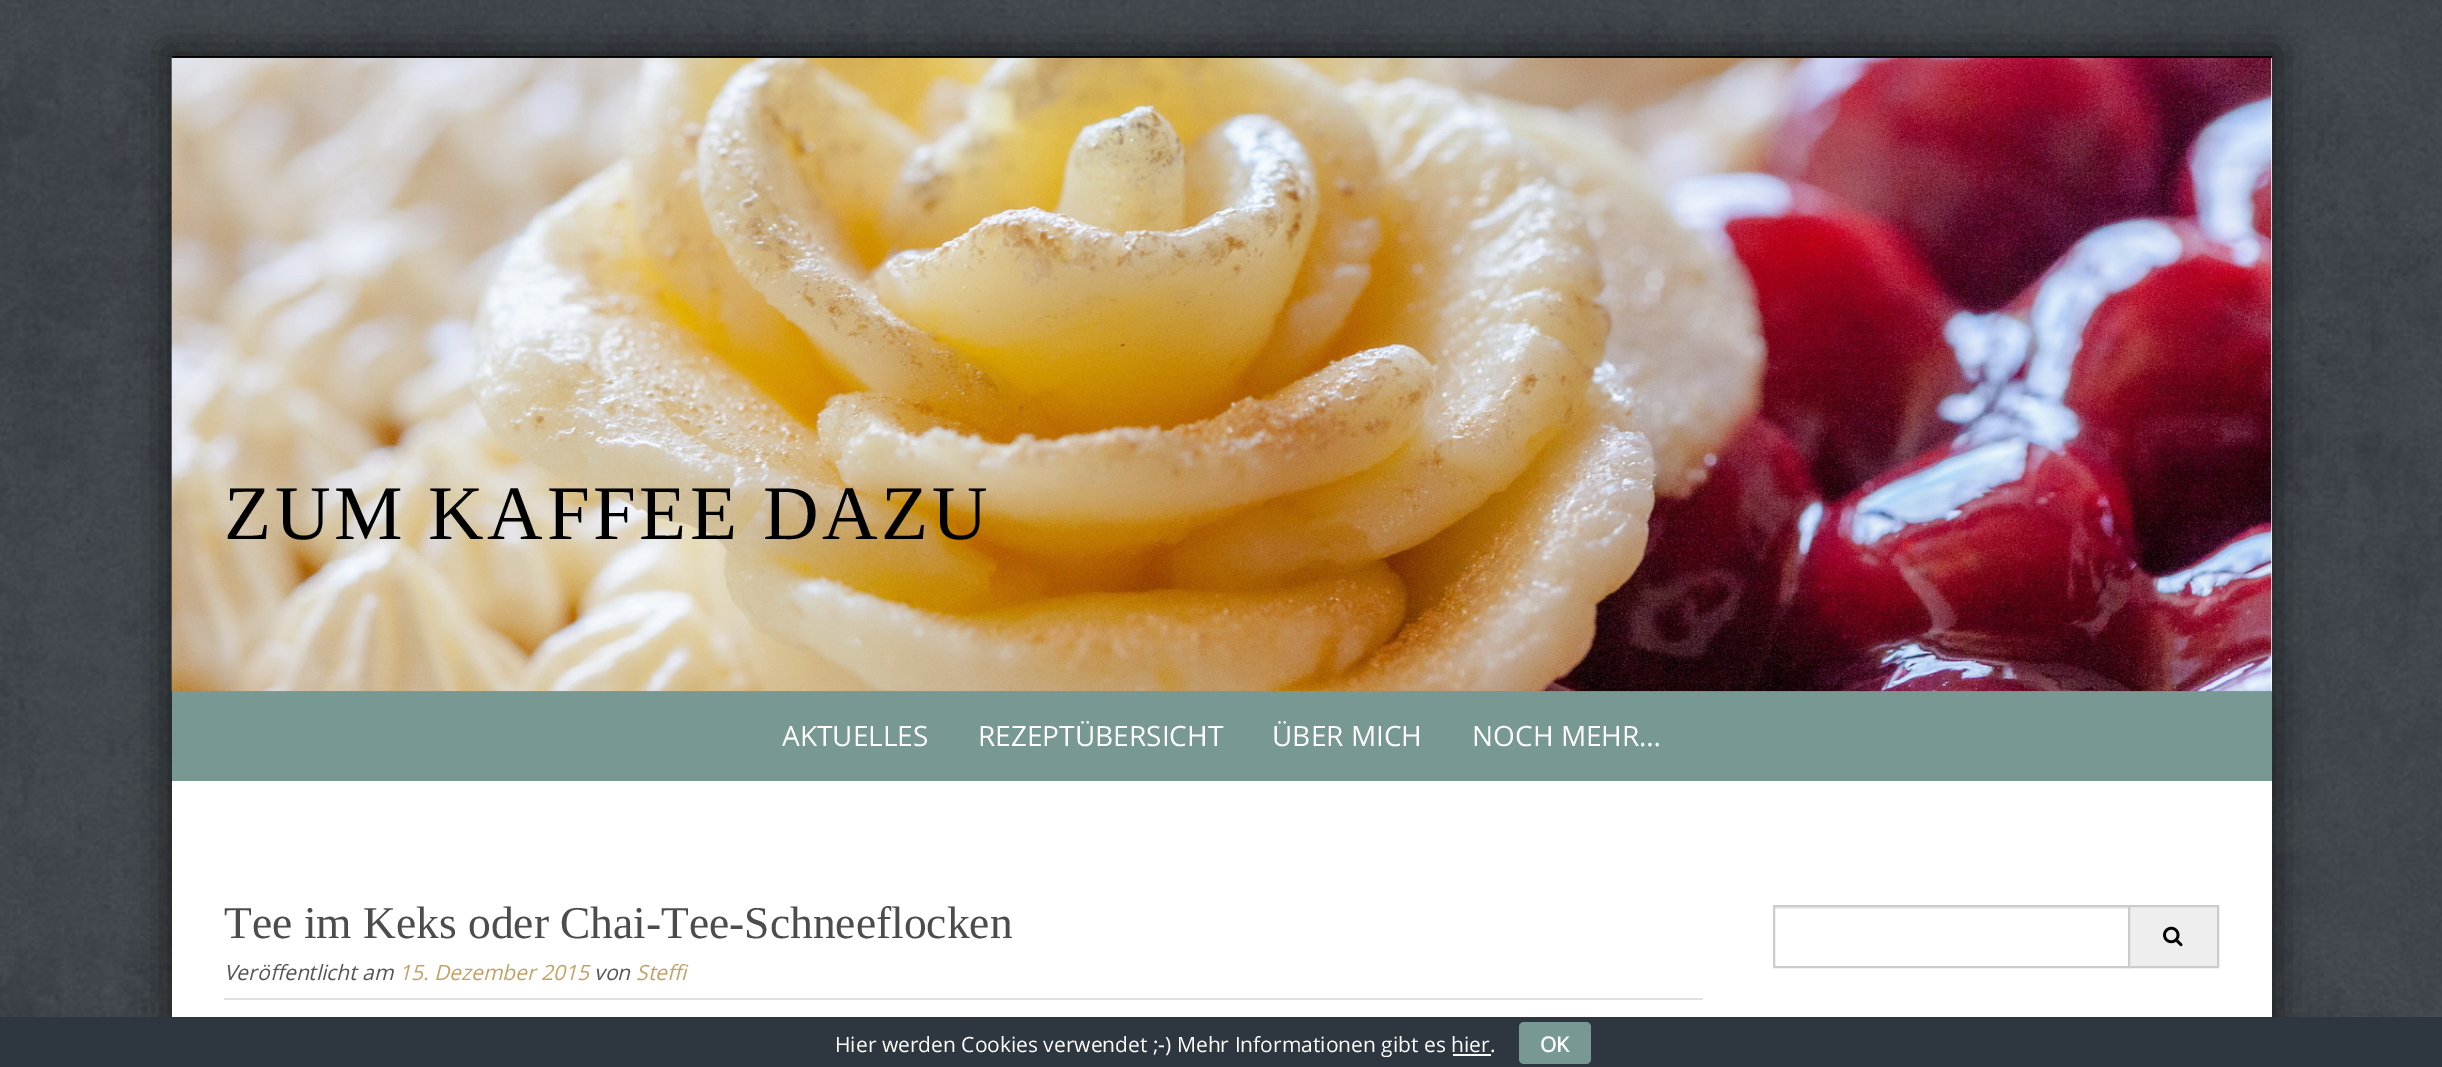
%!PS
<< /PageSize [2442 1067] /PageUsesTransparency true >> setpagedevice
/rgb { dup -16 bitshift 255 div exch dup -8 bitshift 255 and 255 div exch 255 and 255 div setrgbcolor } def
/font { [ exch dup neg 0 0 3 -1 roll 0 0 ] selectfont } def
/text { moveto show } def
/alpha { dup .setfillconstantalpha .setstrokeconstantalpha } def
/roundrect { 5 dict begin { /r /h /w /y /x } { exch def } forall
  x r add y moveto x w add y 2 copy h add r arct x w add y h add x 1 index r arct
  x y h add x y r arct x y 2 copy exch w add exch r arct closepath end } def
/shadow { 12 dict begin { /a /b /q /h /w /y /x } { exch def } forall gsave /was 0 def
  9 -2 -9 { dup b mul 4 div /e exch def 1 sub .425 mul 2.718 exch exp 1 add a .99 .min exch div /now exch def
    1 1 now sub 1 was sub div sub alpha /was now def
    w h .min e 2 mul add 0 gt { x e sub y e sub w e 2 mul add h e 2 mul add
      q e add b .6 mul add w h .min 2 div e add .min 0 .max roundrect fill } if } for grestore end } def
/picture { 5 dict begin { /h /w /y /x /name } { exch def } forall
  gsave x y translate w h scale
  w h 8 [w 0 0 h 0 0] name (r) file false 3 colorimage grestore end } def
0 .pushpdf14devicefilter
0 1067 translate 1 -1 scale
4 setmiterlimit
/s1 { /OpenSans-Regular 28 font 16#FFFFFF rgb } def
/s2 { /LiberationSerif-Regular 45.5 font 16#4C4C4C rgb } def
/s3 { /OpenSans-Italic 21 font 16#545454 rgb } def
/s4 { /OpenSans-Italic 21 font 16#C69F63 rgb } def
/s5 { /OpenSans-Regular 21 font 16#FFFFFF rgb } def
/s6 { /OpenSans-Bold 21 font 16#FFFFFF rgb } def
16#FFFFFF rgb
0 0 2442 1067 rectfill
(pic1.raw) 0 0 2442 1017 picture
16#000000 rgb
163 47 2117 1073 0 17.5 0.5 shadow
172 56 2100 2 rectfill
16#FFFFFF rgb
2271 58 1 633 rectfill
16#789993 rgb
172 691 2100 90 rectfill
(pic2.raw) 171 57 2101 635 picture
/LiberationSerif-Regular 77 font
16#000000 rgb
224 539 moveto 3.5 0 (ZUM KAFFEE DAZU) ashow
s1
(AKTUELLES) 782 746 text
(REZEPTÜBERSICHT) 978 746 text
(ÜBER MICH) 1272 746 text
(NOCH MEHR…) 1472 746 text
172 781 2100 236 rectfill
16#E0E0E0 rgb
224 998 1479 2 rectfill
s2
(Tee im Keks oder Chai-Tee-Schneeflocken) 224 938 text
s3
(Veröffentlicht am) 224 980 text
s4
(15. Dezember 2015) 399 980 text
s3
(von) 594 980 text
s4
(Steffi) 636 980 text
16#EEEEEE rgb
2130 907 87 59 rectfill
16#CCCCCC rgb
2 setlinewidth
2127 906 91 61 rectstroke
16#FFFFFF rgb
2126 909 2 57 rectfill
16#ECECEC rgb
1775 907 353 2 rectfill
16#CCCCCC rgb
1774 906 355 61 rectstroke
(pic3.raw) 2163 926 20 21 picture
16#2E363F rgb
0 1017 2442 50 rectfill
s5
(Hier werden Cookies verwendet ;-\) Mehr Informationen gibt es hier.) 835 1052 text
16#789993 rgb
1519 1022 72 42 5 roundrect fill
s6
(OK) 1540 1052 text
1453 1054 38 2 rectfill
.poppdf14devicefilter showpage
